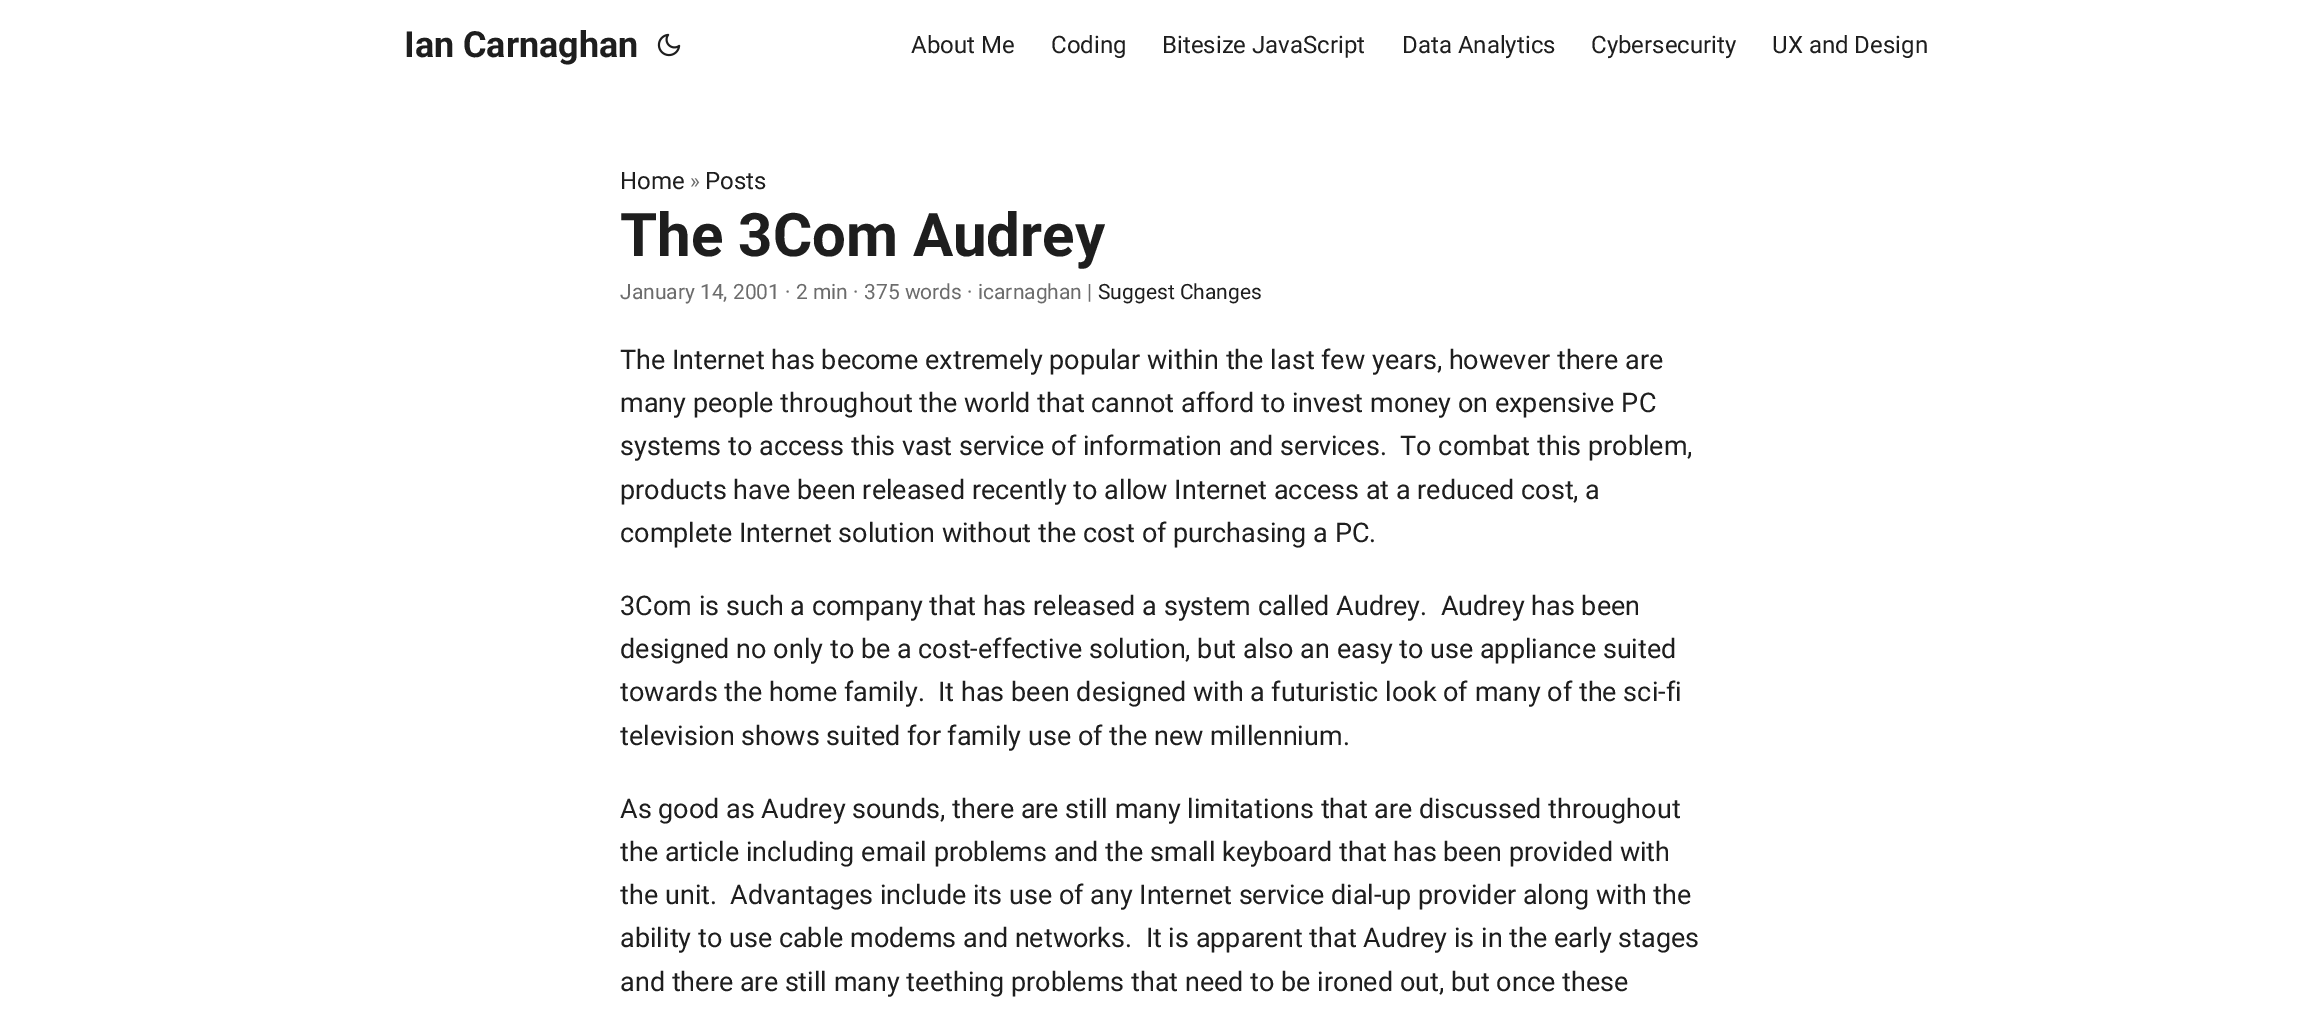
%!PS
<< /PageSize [2320 1025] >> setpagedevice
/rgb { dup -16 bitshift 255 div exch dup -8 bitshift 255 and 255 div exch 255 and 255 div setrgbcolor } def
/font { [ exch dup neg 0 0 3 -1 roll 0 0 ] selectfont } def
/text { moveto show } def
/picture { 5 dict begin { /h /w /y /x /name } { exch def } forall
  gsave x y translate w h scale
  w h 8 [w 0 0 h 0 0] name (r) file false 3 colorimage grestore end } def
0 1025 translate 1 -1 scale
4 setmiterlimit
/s1 { /Roboto-Bold 36 font 16#1E1E1E rgb } def
/s2 { /Roboto-Regular 24 font 16#1E1E1E rgb } def
/s3 { /Roboto-Regular 21 font 16#6C6C6C rgb } def
/s4 { /Roboto-Bold 60 font 16#1E1E1E rgb } def
/s5 { /Roboto-Regular 21 font 16#1E1E1E rgb } def
/s6 { /Roboto-Regular 27 font 16#1E1E1E rgb } def
16#FFFFFF rgb
0 0 2320 1025 rectfill
s1
(Ian Carnaghan) 404 57 text
(pic1.raw) 657 33 24 24 picture
s2
(About Me) 911 53 text
(Coding) 1051 53 text
(Bitesize JavaScript) 1162 53 text
(Data Analytics) 1402 53 text
(Cybersecurity) 1591 53 text
(UX and Design) 1772 53 text
(Home) 620 189 text
s3
(») 690 188 text
s2
(Posts) 705 189 text
s4
(The 3Com Audrey) 620 256 text
s3
(January 14, 2001 · 2 min · 375 words · icarnaghan |) 620 299 text
s5
(Suggest Changes) 1098 299 text
s6
(The Internet has become extremely popular within the last few years, however there are) 620 369 text
(many people throughout the world that cannot afford to invest money on expensive PC) 620 412 text
(systems to access this vast service of information and services.  To combat this problem,) 620 455 text
(products have been released recently to allow Internet access at a reduced cost, a) 620 499 text
(complete Internet solution without the cost of purchasing a PC.) 620 542 text
(3Com is such a company that has released a system called Audrey.  Audrey has been) 620 615 text
(designed no only to be a cost-effective solution, but also an easy to use appliance suited) 620 658 text
(towards the home family.  It has been designed with a futuristic look of many of the sci-fi) 620 701 text
(television shows suited for family use of the new millennium.) 620 745 text
(As good as Audrey sounds, there are still many limitations that are discussed throughout) 620 818 text
(the article including email problems and the small keyboard that has been provided with) 620 861 text
(the unit.  Advantages include its use of any Internet service dial-up provider along with the) 620 904 text
(ability to use cable modems and networks.  It is apparent that Audrey is in the early stages) 620 947 text
(and there are still many teething problems that need to be ironed out, but once these) 620 991 text
showpage
